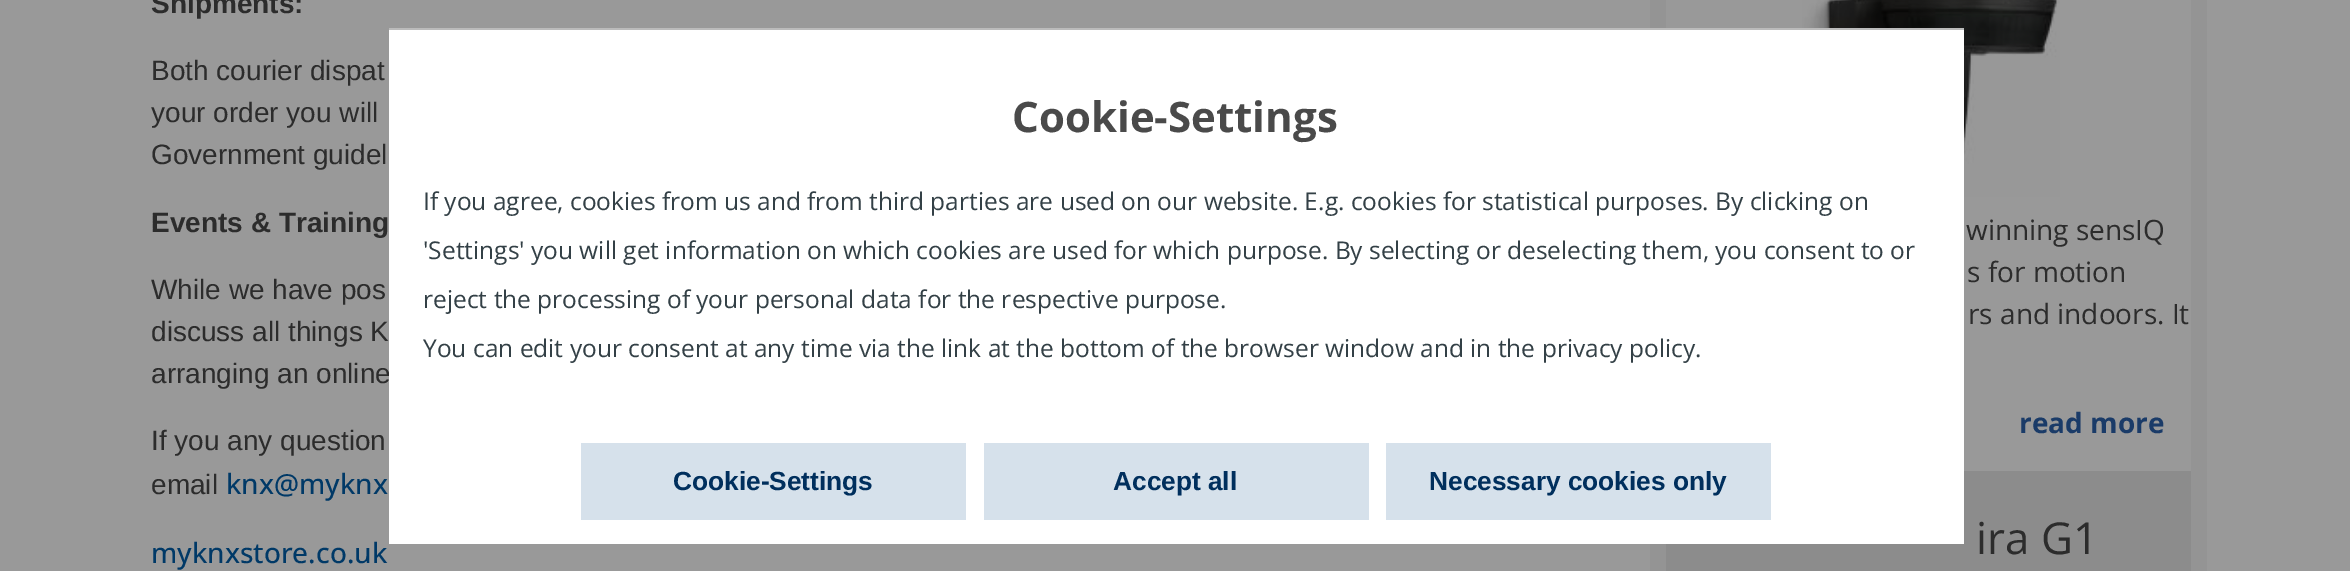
%!PS
<< /PageSize [2350 571] >> setpagedevice
/rgb { dup -16 bitshift 255 div exch dup -8 bitshift 255 and 255 div exch 255 and 255 div setrgbcolor } def
/font { [ exch dup neg 0 0 3 -1 roll 0 0 ] selectfont } def
/text { moveto show } def
/picture { 5 dict begin { /h /w /y /x /name } { exch def } forall
  gsave x y translate w h scale
  w h 8 [w 0 0 h 0 0] name (r) file false 3 colorimage grestore end } def
0 571 translate 1 -1 scale
4 setmiterlimit
/s1 { /LiberationSans-Bold 28 font 16#2C2C2C rgb } def
/s2 { /LiberationSans-Regular 28 font 16#2C2C2C rgb } def
/s3 { /OpenSans-Medium 28 font 16#003967 rgb } def
/s4 { /OpenSans-Regular 28 font 16#2C2C2C rgb } def
/s5 { /OpenSans-Bold 28 font 16#1A3B68 rgb } def
/s6 { /OpenSans-Regular 44 font 16#2C2C2C rgb } def
/s7 { /OpenSans-Bold 42 font 16#4A4A4A rgb } def
/s8 { /OpenSans-Regular 24.5 font 16#334046 rgb } def
/s9 { /LiberationSans-Bold 26.25 font 16#002F5D rgb } def
16#999999 rgb
0 0 2350 571 rectfill
s1
(Shipments:) 151 13 text
s2
(Both courier dispat) 151 80 text
(your order you will) 151 122 text
(Government guidel) 151 164 text
s1
(Events & Training) 151 232 text
s2
(While we have pos) 151 299 text
(discuss all things K) 151 341 text
(arranging an online) 151 383 text
(If you any question) 151 450 text
(email) 151 494 text
s3
(knx@myknx) 226 494 text
(myknxstore.co.uk) 151 563 text
16#949494 rgb
1650 0 557 571 rectfill
16#999999 rgb
1666 0 525 471 rectfill
(pic1.raw) 1802 0 258 197 picture
s4
(winning sensIQ) 1966 240 text
(s for motion) 1967 282 text
(rs and indoors. It) 1968 324 text
s5
(read more) 2019 433 text
16#8C8C8C rgb
1666 471 525 100 rectfill
s6
(ira G1) 1976 554 text
16#FFFFFF rgb
389 30 1575 514 rectfill
16#BBBBBB rgb
389 28 1575 2 rectfill
s7
(Cookie-Settings) 1012 132 text
s8
(If you agree, cookies from us and from third parties are used on our website. E.g. cookies for statistical purposes. By clicking on) 423 210 text
('Settings' you will get information on which cookies are used for which purpose. By selecting or deselecting them, you consent to or) 423 259 text
(reject the processing of your personal data for the respective purpose.) 423 308 text
(You can edit your consent at any time via the link at the bottom of the browser window and in the privacy policy.) 423 357 text
16#D6E1EB rgb
581 443 385 77 rectfill
s9
(Cookie-Settings) 673 490 text
16#D6E1EB rgb
984 443 385 77 rectfill
s9
(Accept all) 1113 490 text
16#D6E1EB rgb
1386 443 385 77 rectfill
s9
(Necessary cookies only) 1429 490 text
showpage
